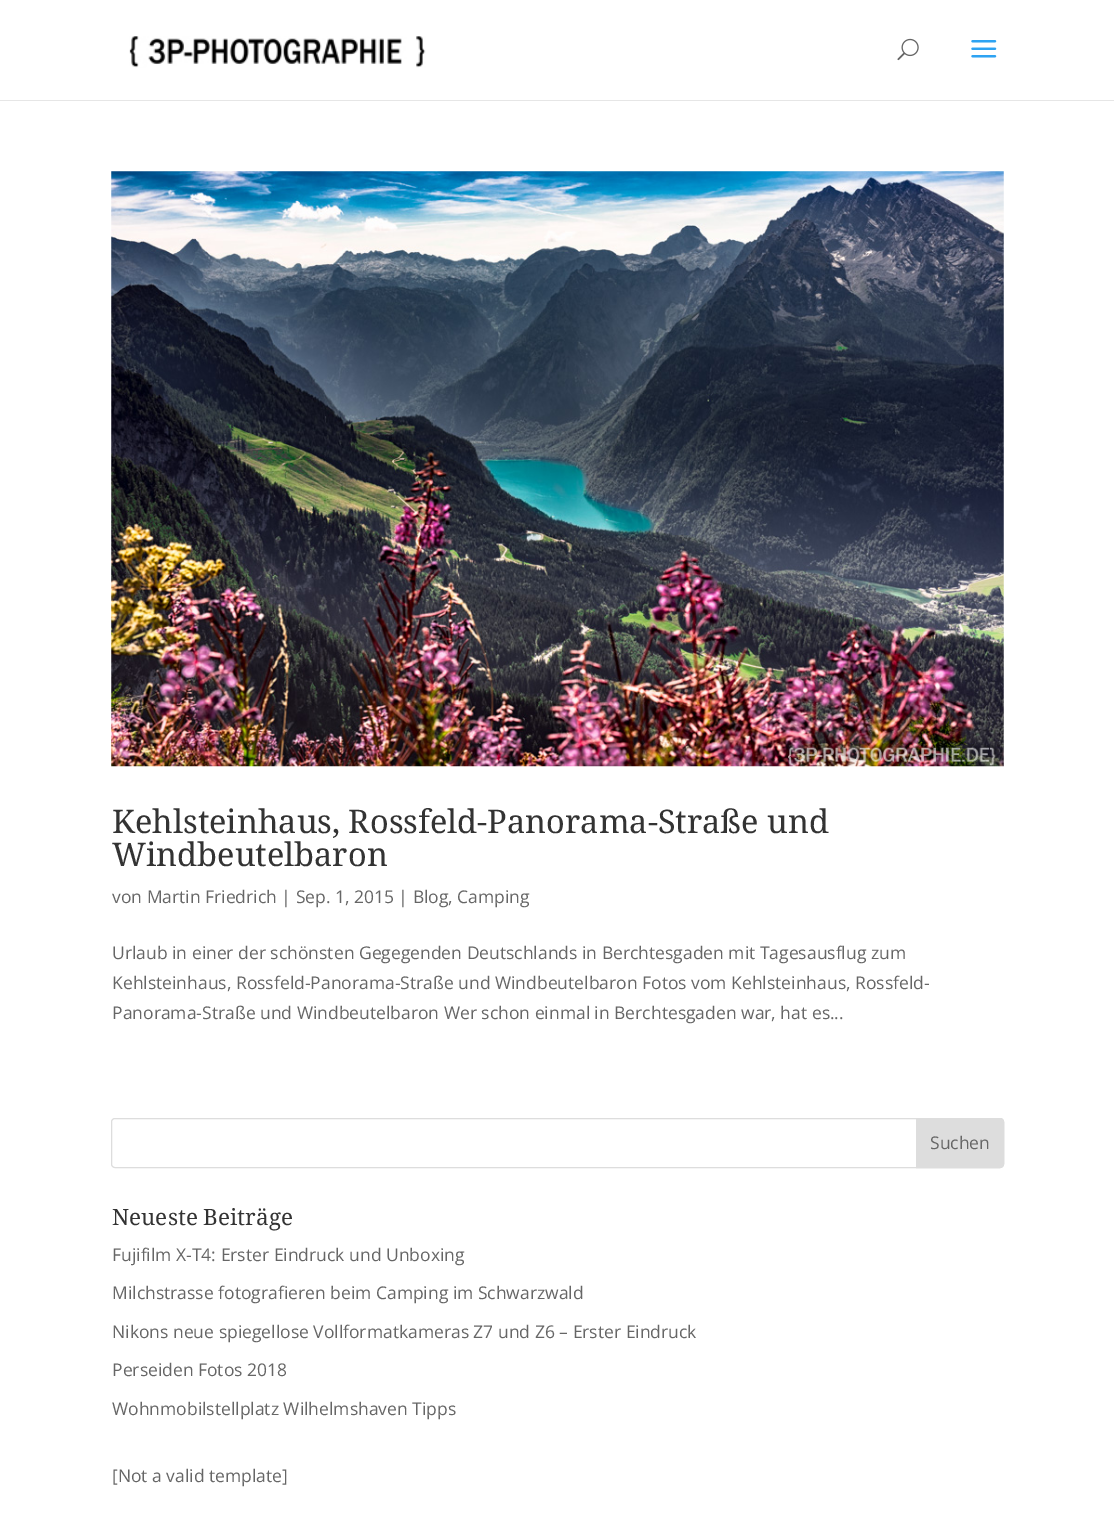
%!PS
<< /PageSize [1114 1524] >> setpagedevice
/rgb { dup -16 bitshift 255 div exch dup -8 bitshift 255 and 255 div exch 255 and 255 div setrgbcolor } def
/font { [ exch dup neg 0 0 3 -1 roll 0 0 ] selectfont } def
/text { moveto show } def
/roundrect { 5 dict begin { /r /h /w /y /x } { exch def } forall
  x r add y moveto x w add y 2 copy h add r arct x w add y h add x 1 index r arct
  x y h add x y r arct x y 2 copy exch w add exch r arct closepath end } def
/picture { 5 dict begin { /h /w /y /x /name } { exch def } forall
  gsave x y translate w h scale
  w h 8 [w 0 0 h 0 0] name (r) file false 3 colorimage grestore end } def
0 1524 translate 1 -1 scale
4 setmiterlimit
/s1 { /NotoSerif-Regular 32.5 font 16#333333 rgb } def
/s2 { /OpenSans-Regular 17.5 font 16#666666 rgb } def
/s3 { /NotoSerif-Regular 22.5 font 16#333333 rgb } def
16#FFFFFF rgb
0 0 1114 1524 rectfill
16#E6E6E6 rgb
0 100 1114 1 rectfill
(pic1.raw) 129 36 297 32 picture
(pic2.raw) 897 38 22 23 picture
(pic3.raw) 971 40 26 18 picture
(pic4.raw) 111 171 893 596 picture
s1
(Kehlsteinhaus, Rossfeld-Panorama-Straße und) 112 833 text
(Windbeutelbaron) 112 866 text
s2
(von Martin Friedrich | Sep. 1, 2015 | Blog, Camping) 112 903 text
(Urlaub in einer der schönsten Gegegenden Deutschlands in Berchtesgaden mit Tagesausflug zum) 112 959 text
(Kehlsteinhaus, Rossfeld-Panorama-Straße und Windbeutelbaron Fotos vom Kehlsteinhaus, Rossfeld-) 112 989 text
(Panorama-Straße und Windbeutelbaron Wer schon einmal in Berchtesgaden war, hat es...) 112 1019 text
16#DDDDDD rgb
111.5 1118.5 892 49 3.5 roundrect stroke
916.5 1118.5 moveto 1000 1118.5 lineto 1002 1118.5 1003.5 1120 1003.5 1122 curveto 1003.5 1164 lineto 1003.5 1166 1002 1167.5 1000 1167.5 curveto 916.5 1167.5 lineto closepath gsave fill grestore
stroke
s2
(Suchen) 930 1149 text
s3
(Neueste Beiträge) 112 1225 text
s2
(Fujifilm X-T4: Erster Eindruck und Unboxing) 112 1261 text
(Milchstrasse fotografieren beim Camping im Schwarzwald) 112 1299 text
(Nikons neue spiegellose Vollformatkameras Z7 und Z6 – Erster Eindruck) 112 1338 text
(Perseiden Fotos 2018) 112 1376 text
(Wohnmobilstellplatz Wilhelmshaven Tipps) 112 1415 text
([Not a valid template]) 112 1482 text
showpage
